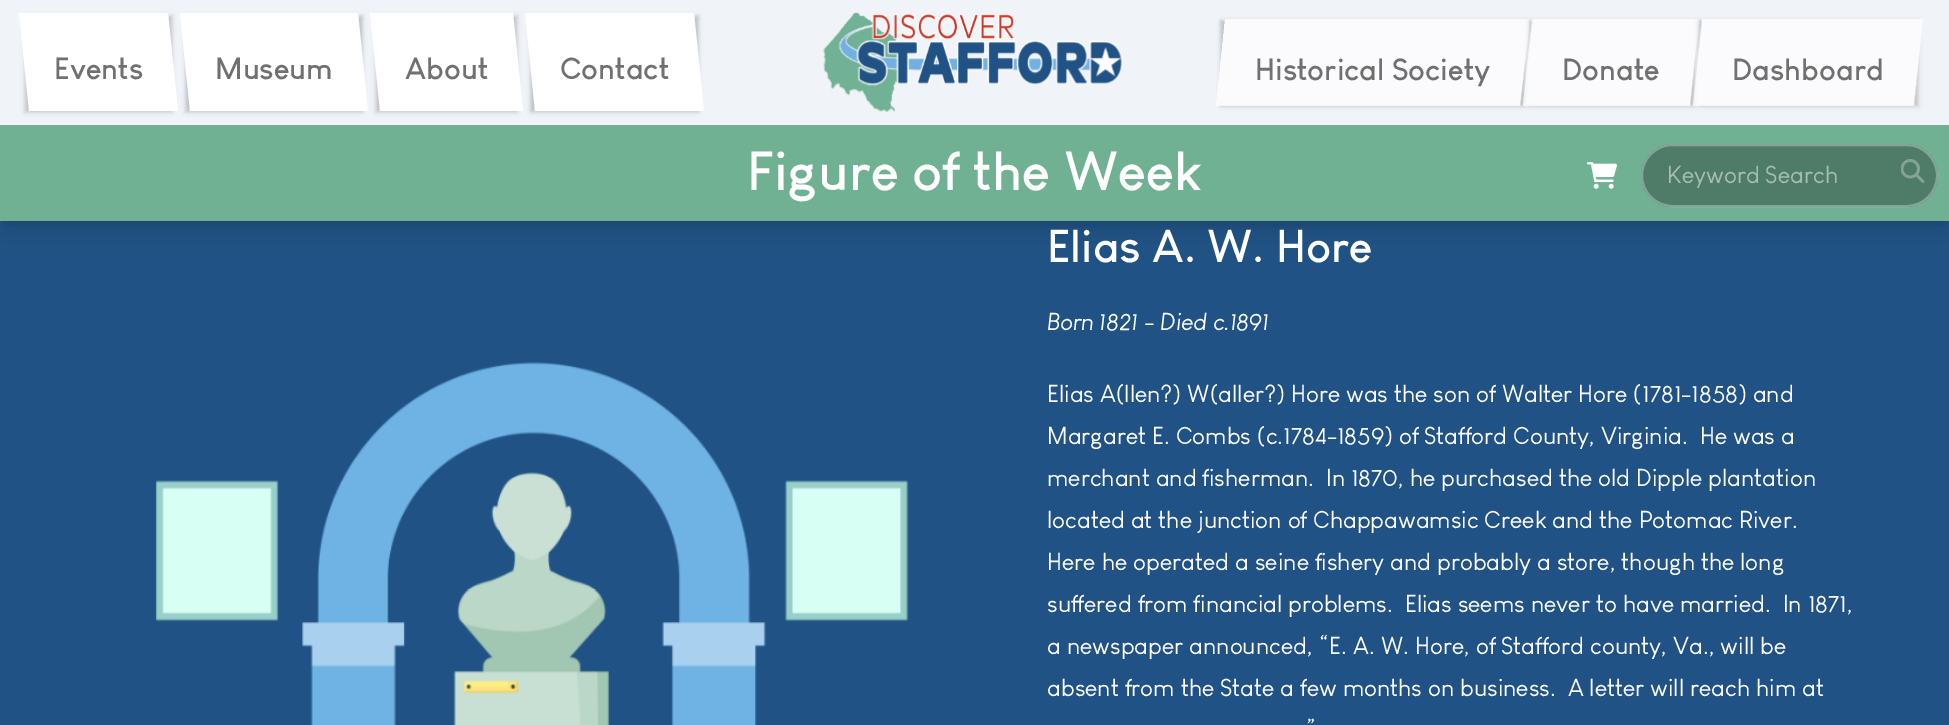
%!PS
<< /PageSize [1949 725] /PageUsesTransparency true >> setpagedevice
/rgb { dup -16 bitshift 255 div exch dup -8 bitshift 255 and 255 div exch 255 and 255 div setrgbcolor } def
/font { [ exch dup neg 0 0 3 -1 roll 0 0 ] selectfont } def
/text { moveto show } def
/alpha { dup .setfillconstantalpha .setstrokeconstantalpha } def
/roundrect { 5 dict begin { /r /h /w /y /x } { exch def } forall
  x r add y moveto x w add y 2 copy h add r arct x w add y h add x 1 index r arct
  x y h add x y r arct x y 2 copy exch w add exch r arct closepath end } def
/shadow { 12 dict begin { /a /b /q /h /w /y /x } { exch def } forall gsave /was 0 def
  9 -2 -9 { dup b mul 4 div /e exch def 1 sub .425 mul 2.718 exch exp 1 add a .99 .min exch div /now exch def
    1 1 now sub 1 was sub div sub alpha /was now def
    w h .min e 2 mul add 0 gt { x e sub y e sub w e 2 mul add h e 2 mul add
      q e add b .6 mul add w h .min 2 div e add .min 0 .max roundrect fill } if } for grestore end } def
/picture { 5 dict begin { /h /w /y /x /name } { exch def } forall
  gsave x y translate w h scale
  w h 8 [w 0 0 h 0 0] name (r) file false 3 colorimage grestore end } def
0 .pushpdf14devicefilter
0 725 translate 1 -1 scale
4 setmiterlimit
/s1 { /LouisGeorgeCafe-Bold 30 font 16#707070 rgb } def
/s2 { /LouisGeorgeCafe-Bold 54 font 16#FFFFFF rgb } def
/s3 { /LouisGeorgeCafe-Regular 24 font 16#A7BEB4 rgb } def
/s4 { /LouisGeorgeCafe-Bold 45 font 16#FFFFFF rgb } def
/s5 { /LouisGeorgeCafe-Italic 24 font 16#FFFFFF rgb } def
/s6 { /LouisGeorgeCafe-Regular 24 font 16#FFFFFF rgb } def
16#205285 rgb
0 0 1949 725 rectfill
16#000000 rgb
6 137 1938 84 0 4.5 0.1 shadow
5 144 1941 87 0 11 0.1 shadow
6 137 1938 84 0 4.5 0.1 shadow
16#F0F3F7 rgb
0 0 1949 125 rectfill
16#000000 rgb
26 17 145 94 0 1.5 0.1 shadow
24 15 149 98 0 2 0.1 shadow
16#FFFFFF rgb
19 13 moveto 168 13 lineto 178 111 lineto 29 111 lineto closepath fill
s1
(Events) 54 79 text
16#000000 rgb
186 17 176 94 0 1.5 0.1 shadow
185 15 178 98 0 2 0.1 shadow
16#FFFFFF rgb
180 13 moveto 358 13 lineto 368 111 lineto 190 111 lineto closepath fill
s1
(Museum) 215 79 text
16#000000 rgb
377 17 139 94 0 1.5 0.1 shadow
375 15 143 98 0 2 0.1 shadow
16#FFFFFF rgb
370 13 moveto 513 13 lineto 523 111 lineto 380 111 lineto closepath fill
s1
(About) 405 79 text
16#000000 rgb
531 17 167 94 0 1.5 0.1 shadow
530 15 169 98 0 2 0.1 shadow
16#FFFFFF rgb
525 13 moveto 694 13 lineto 704 111 lineto 535 111 lineto closepath fill
s1
(Contact) 560 79 text
(pic1.raw) 823 12 300 101 picture
gsave
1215 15 moveto 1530 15 lineto 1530 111 lineto 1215 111 lineto closepath 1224.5 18.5 moveto 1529.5 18.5 lineto 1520.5 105.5 lineto 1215.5 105.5 lineto closepath eoclip newpath
16#000000 rgb
1221 21 303 84 0 1.5 0.1 shadow
grestore
gsave
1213 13 moveto 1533 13 lineto 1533 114 lineto 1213 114 lineto closepath 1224.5 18.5 moveto 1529.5 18.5 lineto 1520.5 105.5 lineto 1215.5 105.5 lineto closepath eoclip newpath
16#000000 rgb
1220 20 306 87 0 2 0.1 shadow
grestore
0.7 alpha
16#FFFFFF rgb
1225 19 moveto 1530 19 lineto 1520 106 lineto 1216 106 lineto closepath fill
1 alpha
s1
(Historical Society) 1255 80 text
gsave
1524 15 moveto 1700 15 lineto 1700 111 lineto 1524 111 lineto closepath 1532.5 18.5 moveto 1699.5 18.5 lineto 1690 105.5 lineto 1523 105.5 lineto closepath eoclip newpath
16#000000 rgb
1530 21 164 84 0 1.5 0.1 shadow
grestore
gsave
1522 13 moveto 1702 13 lineto 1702 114 lineto 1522 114 lineto closepath 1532.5 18.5 moveto 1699.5 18.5 lineto 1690 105.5 lineto 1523 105.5 lineto closepath eoclip newpath
16#000000 rgb
1529 20 166 87 0 2 0.1 shadow
grestore
0.7 alpha
16#FFFFFF rgb
1532 19 moveto 1699 19 lineto 1690 106 lineto 1523 106 lineto closepath fill
1 alpha
s1
(Donate) 1562 80 text
gsave
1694 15 moveto 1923 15 lineto 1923 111 lineto 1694 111 lineto closepath 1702 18.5 moveto 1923 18.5 lineto 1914 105.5 lineto 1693 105.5 lineto closepath eoclip newpath
16#000000 rgb
1700 21 217 84 0 1.5 0.1 shadow
grestore
gsave
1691 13 moveto 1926 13 lineto 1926 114 lineto 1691 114 lineto closepath 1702 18.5 moveto 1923 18.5 lineto 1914 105.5 lineto 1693 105.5 lineto closepath eoclip newpath
16#000000 rgb
1698 20 221 87 0 2 0.1 shadow
grestore
0.7 alpha
16#FFFFFF rgb
1702 19 moveto 1923 19 lineto 1914 106 lineto 1693 106 lineto closepath fill
1 alpha
s1
(Dashboard) 1732 80 text
16#70B194 rgb
0 125 1949 96 rectfill
s2
(Figure of the Week) 747 190 text
(pic2.raw) 1587 162 30 27 picture
16#4E7C68 rgb
1641 144 297 63 31.5 roundrect fill
0.3 alpha
16#FFFFFF rgb
2 setlinewidth
1642 145 295 61 30.5 roundrect stroke
1 alpha
s3
(Keyword Search) 1667 183 text
(pic3.raw) 1901 159 24 24 picture
(pic4.raw) 155 362 754 363 picture
s4
(Elias A. W. Hore) 1047 262 text
s5
(Born 1821 - Died c.1891) 1047 330 text
s6
(Elias A\(llen?\) W\(aller?\) Hore was the son of Walter Hore \(1781-1858\) and) 1047 402 text
(Margaret E. Combs \(c.1784-1859\) of Stafford County, Virginia.  He was a) 1047 444 text
(merchant and fisherman.  In 1870, he purchased the old Dipple plantation) 1047 486 text
(located at the junction of Chappawamsic Creek and the Potomac River.) 1047 528 text
(Here he operated a seine fishery and probably a store, though the long) 1047 570 text
(suffered from financial problems.  Elias seems never to have married.  In 1871,) 1047 612 text
(a newspaper announced, “E. A. W. Hore, of Stafford county, Va., will be) 1047 654 text
(absent from the State a few months on business.  A letter will reach him at) 1047 696 text
(”) 1305 738 text
.poppdf14devicefilter showpage
